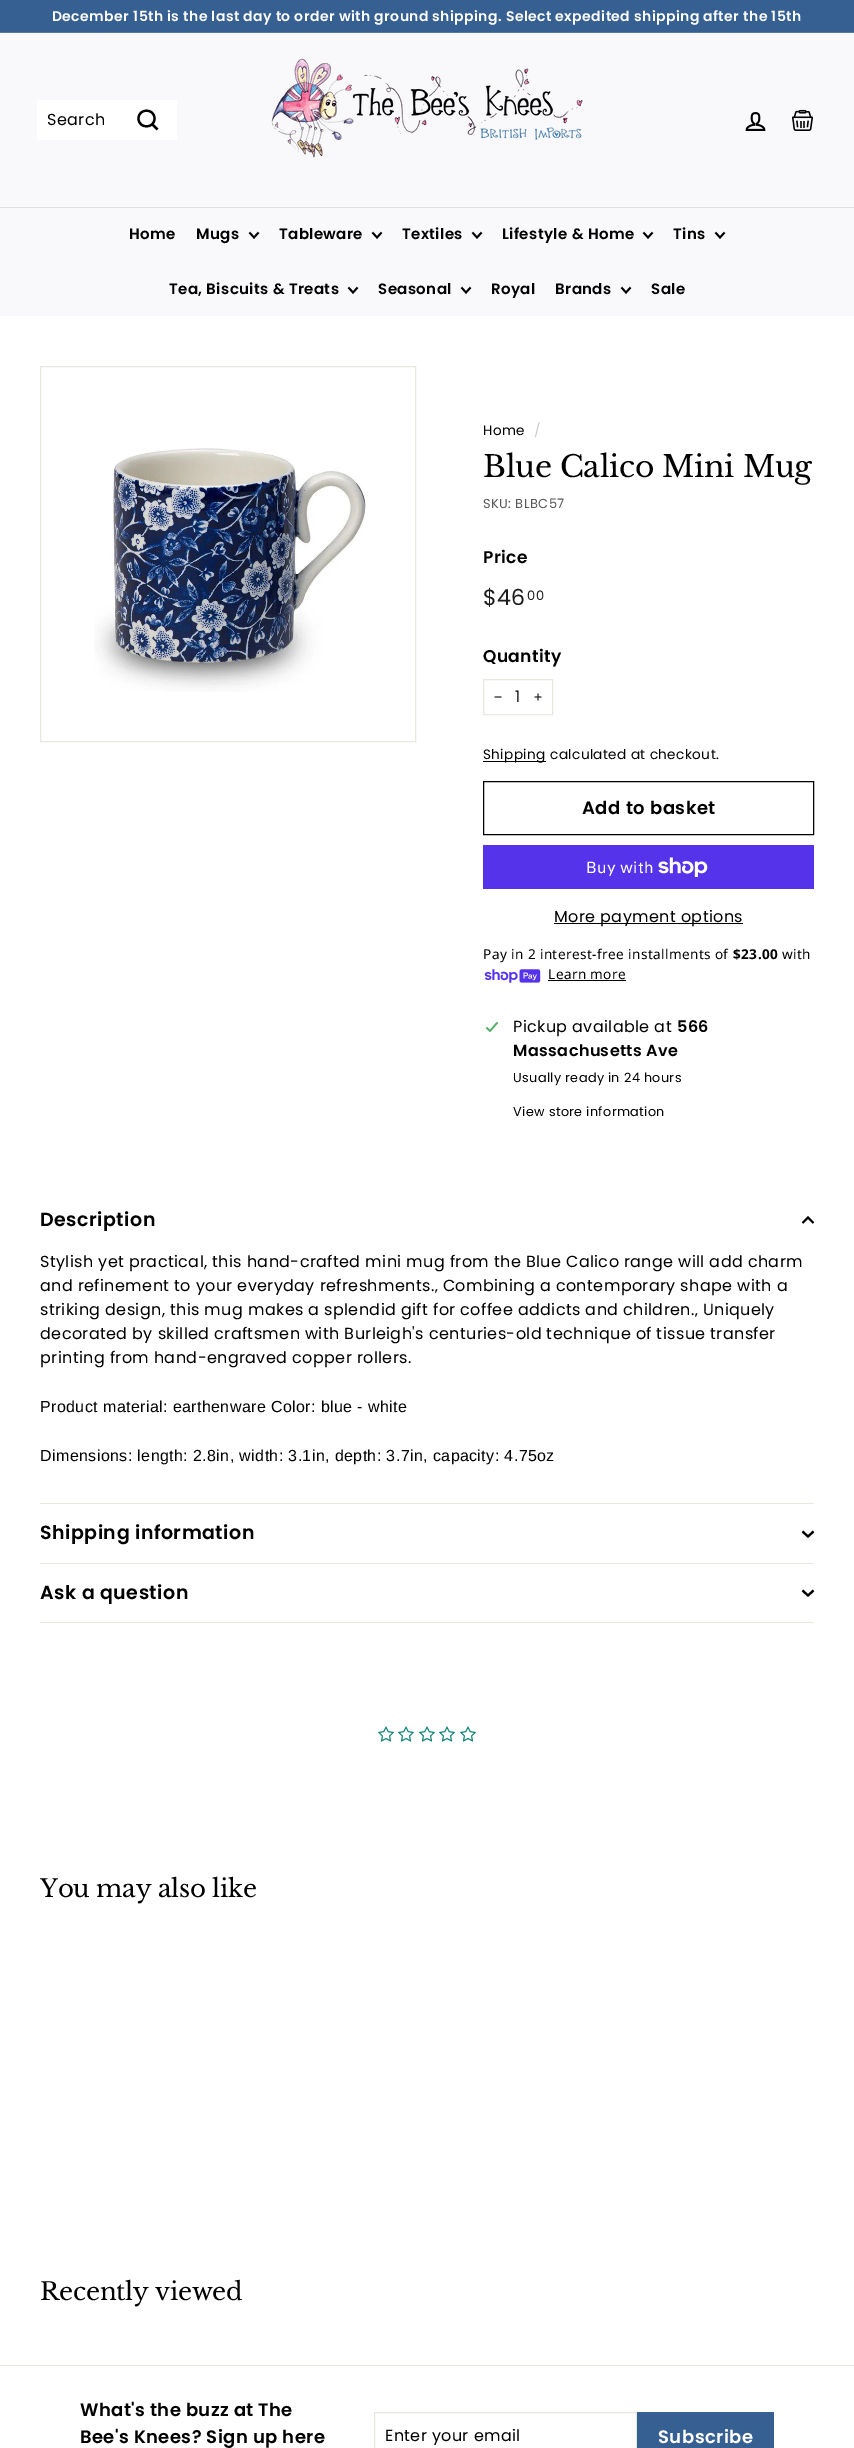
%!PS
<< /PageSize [854 2448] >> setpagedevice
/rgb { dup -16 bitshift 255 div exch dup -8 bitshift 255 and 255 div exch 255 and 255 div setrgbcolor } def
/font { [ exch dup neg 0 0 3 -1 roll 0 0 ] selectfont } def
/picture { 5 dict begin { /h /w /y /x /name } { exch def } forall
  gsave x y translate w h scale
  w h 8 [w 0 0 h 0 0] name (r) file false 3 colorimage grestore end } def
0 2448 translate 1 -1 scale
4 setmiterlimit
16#FFFFFF rgb
0 0 854 2448 rectfill
16#366092 rgb
0 0 854 32 rectfill
/Poppins-SemiBold 14 font
16#FFFFFF rgb
52 21 moveto 0.4 0 (December 15th is the last day to order with ground shipping. Select expedited shipping after the 15th) ashow
16#5478A2 rgb
0 32 854 1 rectfill
16#F9F9FB rgb
0 33 854 174 rectfill
16#FFFFFF rgb
37 100 140 40 rectfill
/Poppins-Regular 16 font
16#000000 rgb
47 125 moveto 0.4 0 (Search) ashow
2.2 setlinewidth
154.5 118.5 moveto 154.5 129 138.5 129 138.5 118.5 curveto 138.5 108 154.5 108 154.5 118.5 curveto closepath 157.5 129.5 moveto 152.5 124.5 lineto stroke
(pic1.raw) 271 58 312 100 picture
(pic2.raw) 745 112 21 19 picture
(pic3.raw) 792 109 21 22 picture
16#E0E0E2 rgb
0 207 854 1 rectfill
16#F9F9FB rgb
0 208 854 108 rectfill
/Poppins-SemiBold 15 font
16#000000 rgb
129 239 moveto 0.4 0 (Home) ashow
196 239 moveto 0.4 0 (Mugs) ashow
1.8 setlinewidth
249.5 232.5 moveto 254 237.5 lineto 258.5 232.5 lineto stroke
279 239 moveto 0.4 0 (Tableware) ashow
372.5 232.5 moveto 377 237.5 lineto 381.5 232.5 lineto stroke
402 239 moveto 0.4 0 (Textiles) ashow
472.5 232.5 moveto 477 237.5 lineto 481.5 232.5 lineto stroke
502 239 moveto 0.4 0 (Lifestyle & Home) ashow
643.5 232.5 moveto 648 237.5 lineto 652.5 232.5 lineto stroke
673 239 moveto 0.4 0 (Tins) ashow
715.5 232.5 moveto 720 237.5 lineto 724.5 232.5 lineto stroke
169 294 moveto 0.4 0 (Tea, Biscuits & Treats) ashow
348.5 287.5 moveto 353 292.5 lineto 357.5 287.5 lineto stroke
378 294 moveto 0.4 0 (Seasonal) ashow
461.5 287.5 moveto 466 292.5 lineto 470.5 287.5 lineto stroke
491 294 moveto 0.4 0 (Royal) ashow
555 294 moveto 0.4 0 (Brands) ashow
621.5 287.5 moveto 626 292.5 lineto 630.5 287.5 lineto stroke
651 294 moveto 0.4 0 (Sale) ashow
16#E8E8E1 rgb
1 setlinewidth
40.5 366.5 375 375 rectstroke
(pic4.raw) 94 447 273 245 picture
/Poppins-Regular 13.6 font
16#000000 rgb
483 435 moveto 0.4 0 (Home) ashow
16#CCCCCC rgb
534 435 moveto 0.4 0 (/) ashow
/LibreBaskerville-Regular 29.75 font
16#000000 rgb
483 477 moveto -0.25 0 (Blue Calico Mini Mug) ashow
/Poppins-Regular 13 font
16#595959 rgb
483 508 moveto 0.4 0 (SKU: BLBC57) ashow
/Poppins-SemiBold 17 font
16#000000 rgb
483 563 moveto 0.4 0 (Price) ashow
/Poppins-Regular 22 font
16#1C1D1D rgb
483 605 moveto 0.4 0 ($46) ashow
/Poppins-Regular 13 font
527 600 moveto 0.4 0 (00) ashow
/Poppins-SemiBold 17 font
16#000000 rgb
483 662 moveto 0.4 0 (Quantity) ashow
16#E8E8E1 rgb
483.5 679.5 69 35 rectstroke
/Poppins-Regular 16 font
16#000000 rgb
515 702 moveto 0.4 0 (1) ashow
0.8 setlinewidth
501.5 697 moveto 494.5 697 lineto 538 693.5 moveto 538 700.5 lineto 541.5 697 moveto 534.5 697 lineto stroke
483 761 63 1 rectfill
/Poppins-Regular 13.6 font
483 759 moveto 0.4 0 (Shipping calculated at checkout.) ashow
1 setlinewidth
483.5 781.5 330 53 rectstroke
/Poppins-SemiBold 18 font
582 814 moveto 0.5 0 (Add to basket) ashow
16#5433EB rgb
483 845 331 44 rectfill
/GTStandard-Regular 16 font
16#FFFFFF rgb
586 873 moveto 0.4 0 (Buy with) ashow
(pic5.raw) 658 857 50 20 picture
16#000000 rgb
554 923 189 1 rectfill
/Poppins-Regular 16 font
554 922 moveto 0.4 0 (More payment options) ashow
/NotoSans-Regular 13.6 font
483 959 moveto 0.4 0 (Pay in 2 interest-free installments of) ashow
/NotoSans-Bold 13.6 font
733 959 moveto 0.4 0 ($23.00) ashow
/NotoSans-Regular 13.6 font
782 959 moveto 0.4 0 (with) ashow
(pic6.raw) 484 969 57 14 picture
548 979 moveto 0.4 0 (Learn more) ashow
548 980 78 1 rectfill
(pic7.raw) 486 1022 12 10 picture
/Poppins-Regular 16 font
513 1032 moveto 0.4 0 (Pickup available at) ashow
/Poppins-SemiBold 16 font
677 1032 moveto 0.4 0 (566) ashow
513 1056 moveto 0.4 0 (Massachusetts Ave) ashow
/Poppins-Regular 12.75 font
513 1082 moveto 0.4 0 (Usually ready in 24 hours) ashow
513 1116 moveto 0.4 0 (View store information) ashow
/Poppins-SemiBold 19 font
40 1226 moveto 0.5 0 (Description) ashow
2.1 setlinewidth
813.5 1223 moveto 808 1217.5 lineto 802.5 1223 lineto stroke
16#E8E8E1 rgb
40 1503 774 1 rectfill
/Poppins-Regular 16 font
16#000000 rgb
40 1267 moveto 0.4 0 (Stylish yet practical, this hand-crafted mini mug from the Blue Calico range will add charm) ashow
40 1291 moveto 0.4 0 (and refinement to your everyday refreshments.‚ Combining a contemporary shape with a) ashow
40 1315 moveto 0.4 0 (striking design, this mug makes a splendid gift for coffee addicts and children.‚ Uniquely) ashow
40 1339 moveto 0.4 0 (decorated by skilled craftsmen with Burleigh's centuries-old technique of tissue transfer) ashow
40 1363 moveto 0.4 0 (printing from hand-engraved copper rollers.) ashow
/LiberationSans-Regular 16 font
40 1412 moveto 0.4 0 (Product material: earthenware Color: blue - white) ashow
40 1461 moveto 0.4 0 (Dimensions: length: 2.8in, width: 3.1in, depth: 3.7in, capacity: 4.75oz) ashow
16#E8E8E1 rgb
40 1563 774 1 rectfill
/Poppins-SemiBold 19 font
16#000000 rgb
40 1539 moveto 0.5 0 (Shipping information) ashow
802.5 1531.5 moveto 808 1536.5 lineto 813.5 1531.5 lineto stroke
16#E8E8E1 rgb
40 1622 774 1 rectfill
16#000000 rgb
40 1599 moveto 0.5 0 (Ask a question) ashow
802.5 1590.5 moveto 808 1595.5 lineto 813.5 1590.5 lineto stroke
(pic8.raw) 378 1726 16 16 picture
(pic8.raw) 398 1726 16 16 picture
(pic8.raw) 419 1726 16 16 picture
(pic8.raw) 439 1726 16 16 picture
(pic8.raw) 460 1726 16 16 picture
/LibreBaskerville-Regular 24.5 font
40 1897 moveto -0.25 0 (You may also like) ashow
40 2300 moveto -0.25 0 (Recently viewed) ashow
16#E8E8E1 rgb
0 2365 854 1 rectfill
/Poppins-SemiBold 18 font
16#000000 rgb
80 2416 moveto 0.4 0 (What's the buzz at The) ashow
80 2443 moveto 0.4 0 (Bee's Knees? Sign up here) ashow
16#E8E8E1 rgb
1 setlinewidth
374.5 2412.5 262 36 rectstroke
/Poppins-Regular 16 font
16#000000 rgb
385 2441 moveto 0.4 0 (Enter your email) ashow
16#366092 rgb
637 2412 137 36 rectfill
/Poppins-SemiBold 18 font
16#FFFFFF rgb
658 2443 moveto 0.5 0 (Subscribe) ashow
showpage
